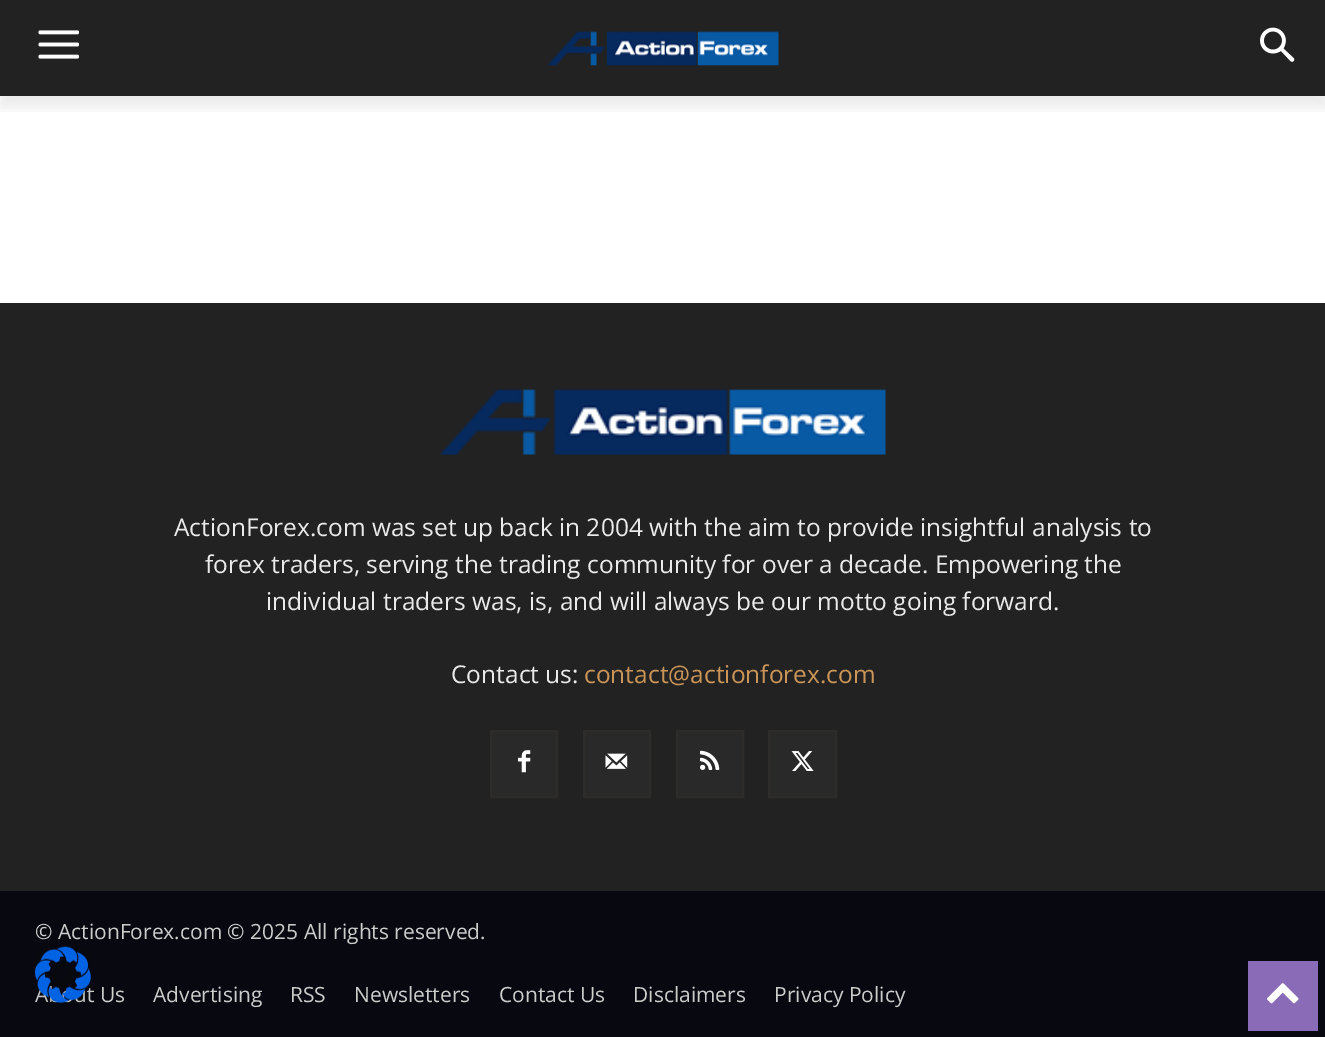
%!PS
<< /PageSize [1325 1037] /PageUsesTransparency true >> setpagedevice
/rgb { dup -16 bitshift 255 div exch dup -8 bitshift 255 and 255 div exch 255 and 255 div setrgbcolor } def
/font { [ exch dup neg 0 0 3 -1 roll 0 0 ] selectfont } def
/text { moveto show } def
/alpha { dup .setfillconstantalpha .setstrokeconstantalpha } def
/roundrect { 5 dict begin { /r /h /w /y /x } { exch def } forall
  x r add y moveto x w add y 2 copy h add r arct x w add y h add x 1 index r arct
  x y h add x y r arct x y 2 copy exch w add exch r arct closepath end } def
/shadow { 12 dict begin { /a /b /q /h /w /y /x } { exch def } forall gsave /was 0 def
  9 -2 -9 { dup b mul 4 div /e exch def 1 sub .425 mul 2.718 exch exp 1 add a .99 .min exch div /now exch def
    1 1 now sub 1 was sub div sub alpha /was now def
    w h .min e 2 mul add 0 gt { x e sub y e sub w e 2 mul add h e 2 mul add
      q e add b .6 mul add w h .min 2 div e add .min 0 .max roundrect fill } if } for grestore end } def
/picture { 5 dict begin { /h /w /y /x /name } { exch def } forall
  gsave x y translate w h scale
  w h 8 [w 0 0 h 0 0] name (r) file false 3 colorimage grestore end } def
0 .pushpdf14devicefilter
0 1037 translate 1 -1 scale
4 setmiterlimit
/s1 { /OpenSans-Regular 24.5 font 16#EAEAEA rgb } def
/s2 { /OpenSans-Regular 24.5 font 16#CB9558 rgb } def
/s3 { /OpenSans-Regular 21 font 16#CCCCCC rgb } def
16#FFFFFF rgb
0 0 1325 1037 rectfill
16#222222 rgb
0 0 1325 96 rectfill
(pic1.raw) 38 30 41 29 picture
(pic2.raw) 548 31 231 35 picture
(pic3.raw) 1260 27 35 35 picture
gsave
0 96 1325 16 rectclip
16#000000 rgb
0 11 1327 96 0 7 0.08 shadow
grestore
0 303 1325 588 rectfill
(pic4.raw) 440 389 446 66 picture
s1
(ActionForex.com was set up back in 2004 with the aim to provide insightful analysis to) 174 536 text
(forex traders, serving the trading community for over a decade. Empowering the) 205 573 text
(individual traders was, is, and will always be our motto going forward.) 266 610 text
(Contact us:) 451 683 text
s2
(contact@actionforex.com) 584 683 text
16#292929 rgb
491 731 moveto 557 731 lineto 557 797 lineto 491 797 lineto closepath gsave fill grestore
16#2E2C2A rgb
2 setlinewidth
stroke
(pic5.raw) 518 750 13 23 picture
16#292929 rgb
584 731 moveto 650 731 lineto 650 797 lineto 584 797 lineto closepath gsave fill grestore
16#2E2C2A rgb
stroke
(pic6.raw) 605 753 23 16 picture
16#292929 rgb
677 731 moveto 743 731 lineto 743 797 lineto 677 797 lineto closepath gsave fill grestore
16#2E2C2A rgb
stroke
(pic7.raw) 700 750 20 20 picture
16#292929 rgb
769 731 moveto 836 731 lineto 836 797 lineto 769 797 lineto closepath gsave fill grestore
16#2E2C2A rgb
stroke
(pic8.raw) 791 751 23 20 picture
16#080810 rgb
0 891 1325 146 rectfill
s3
(© ActionForex.com © 2025 All rights reserved.) 35 939 text
(t Us) 87 1002 text
(Advertising) 153 1002 text
(RSS) 290 1002 text
(Newsletters) 354 1002 text
(Contact Us) 499 1002 text
(Disclaimers) 633 1002 text
(Privacy Policy) 774 1002 text
(pic9.raw) 35 946 57 57 picture
16#8A6BB7 rgb
1248 961 70 70 rectfill
(pic10.raw) 1267 983 32 21 picture
.poppdf14devicefilter showpage
